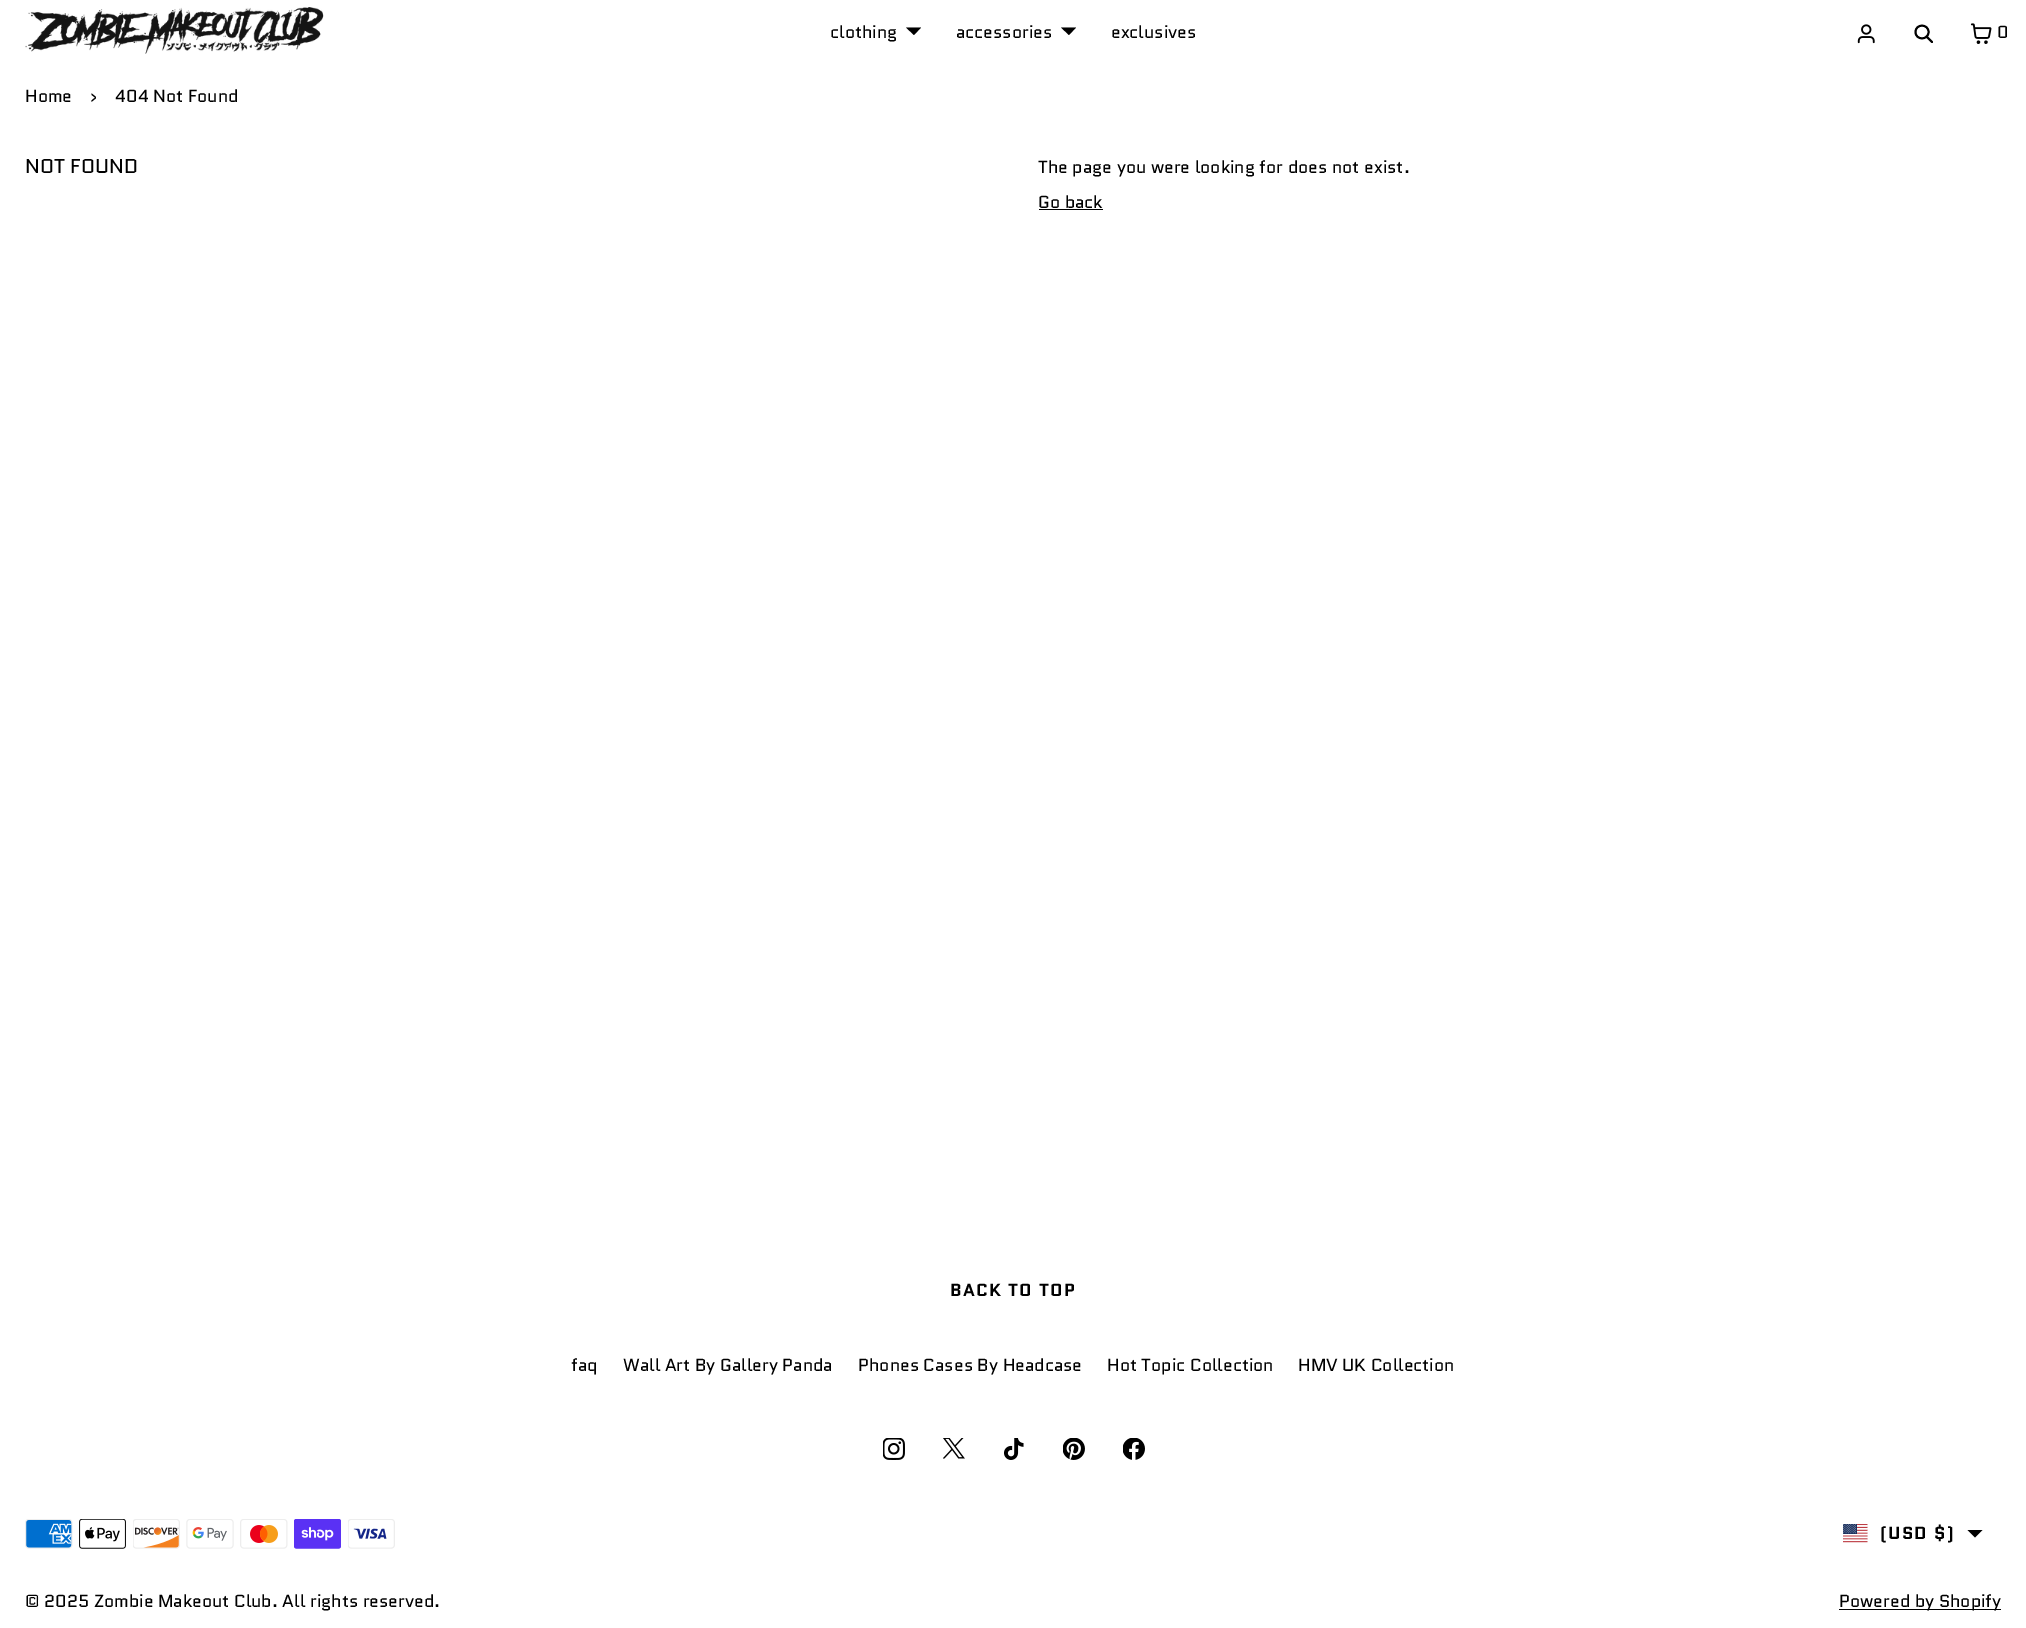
%!PS
<< /PageSize [2026 1628] >> setpagedevice
/rgb { dup -16 bitshift 255 div exch dup -8 bitshift 255 and 255 div exch 255 and 255 div setrgbcolor } def
/font { [ exch dup neg 0 0 3 -1 roll 0 0 ] selectfont } def
/text { moveto show } def
/picture { 5 dict begin { /h /w /y /x /name } { exch def } forall
  gsave x y translate w h scale
  w h 8 [w 0 0 h 0 0] name (r) file false 3 colorimage grestore end } def
0 1628 translate 1 -1 scale
4 setmiterlimit
/s1 { /Quantico-Regular 17.5 font 16#000000 rgb } def
/s2 { /Quantico-Regular 20 font 16#000000 rgb } def
16#FFFFFF rgb
0 0 2026 1628 rectfill
(pic1.raw) 25 7 299 47 picture
s1
(clothing) 830 38 text
906 27.5 moveto 921 27.5 lineto 914 35 lineto closepath fill
(accessories) 956 38 text
1061 27.5 moveto 1076 27.5 lineto 1069 35 lineto closepath fill
(exclusives) 1111 38 text
(pic2.raw) 1857 24 18 20 picture
1.9 setlinewidth
1 setlinecap
1 setlinejoin
1932 42 moveto 1926.5 36.5 lineto 1928.5 32 moveto 1928.5 40.5 1915.5 40.5 1915.5 32 curveto 1915.5 23.5 1928.5 23.5 1928.5 32 curveto closepath stroke
(pic3.raw) 1970 23 22 21 picture
(0) 1997 38 text
(Home) 25 102 text
(›) 90 102 text
(404 Not Found) 115 102 text
s2
(NOT FOUND) 25 173 text
s1
(The page you were looking for does not exist.) 1038 173 text
(Go back) 1038 208 text
1039 209 64 1 rectfill
/Quantico-Bold 17.5 font
950 1296 moveto 1.25 0 (BACK TO TOP) ashow
s1
(faq) 571 1371 text
(Wall Art By Gallery Panda) 623 1371 text
(Phones Cases By Headcase) 858 1371 text
(Hot Topic Collection) 1107 1371 text
(HMV UK Collection) 1298 1371 text
(pic4.raw) 883 1438 22 22 picture
(pic5.raw) 943 1438 22 21 picture
(pic6.raw) 1004 1438 20 22 picture
(pic7.raw) 1063 1438 22 22 picture
(pic8.raw) 1123 1438 22 22 picture
(pic9.raw) 25 1519 48 30 picture
(pic10.raw) 79 1519 47 30 picture
(pic11.raw) 133 1519 47 30 picture
(pic12.raw) 186 1519 48 30 picture
(pic13.raw) 240 1519 48 30 picture
(pic14.raw) 294 1519 47 30 picture
(pic15.raw) 348 1519 47 30 picture
(pic16.raw) 1843 1524 25 19 picture
/Quantico-Bold 17.5 font
1880 1539 moveto 1.25 0 (\(USD $\)) ashow
1967.5 1530 moveto 1982.5 1530 lineto 1975 1537.5 lineto closepath fill
s1
(© 2025 Zombie Makeout Club. All rights reserved.) 25 1607 text
1839 1609 162 1 rectfill
(Powered by Shopify) 1839 1607 text
showpage
